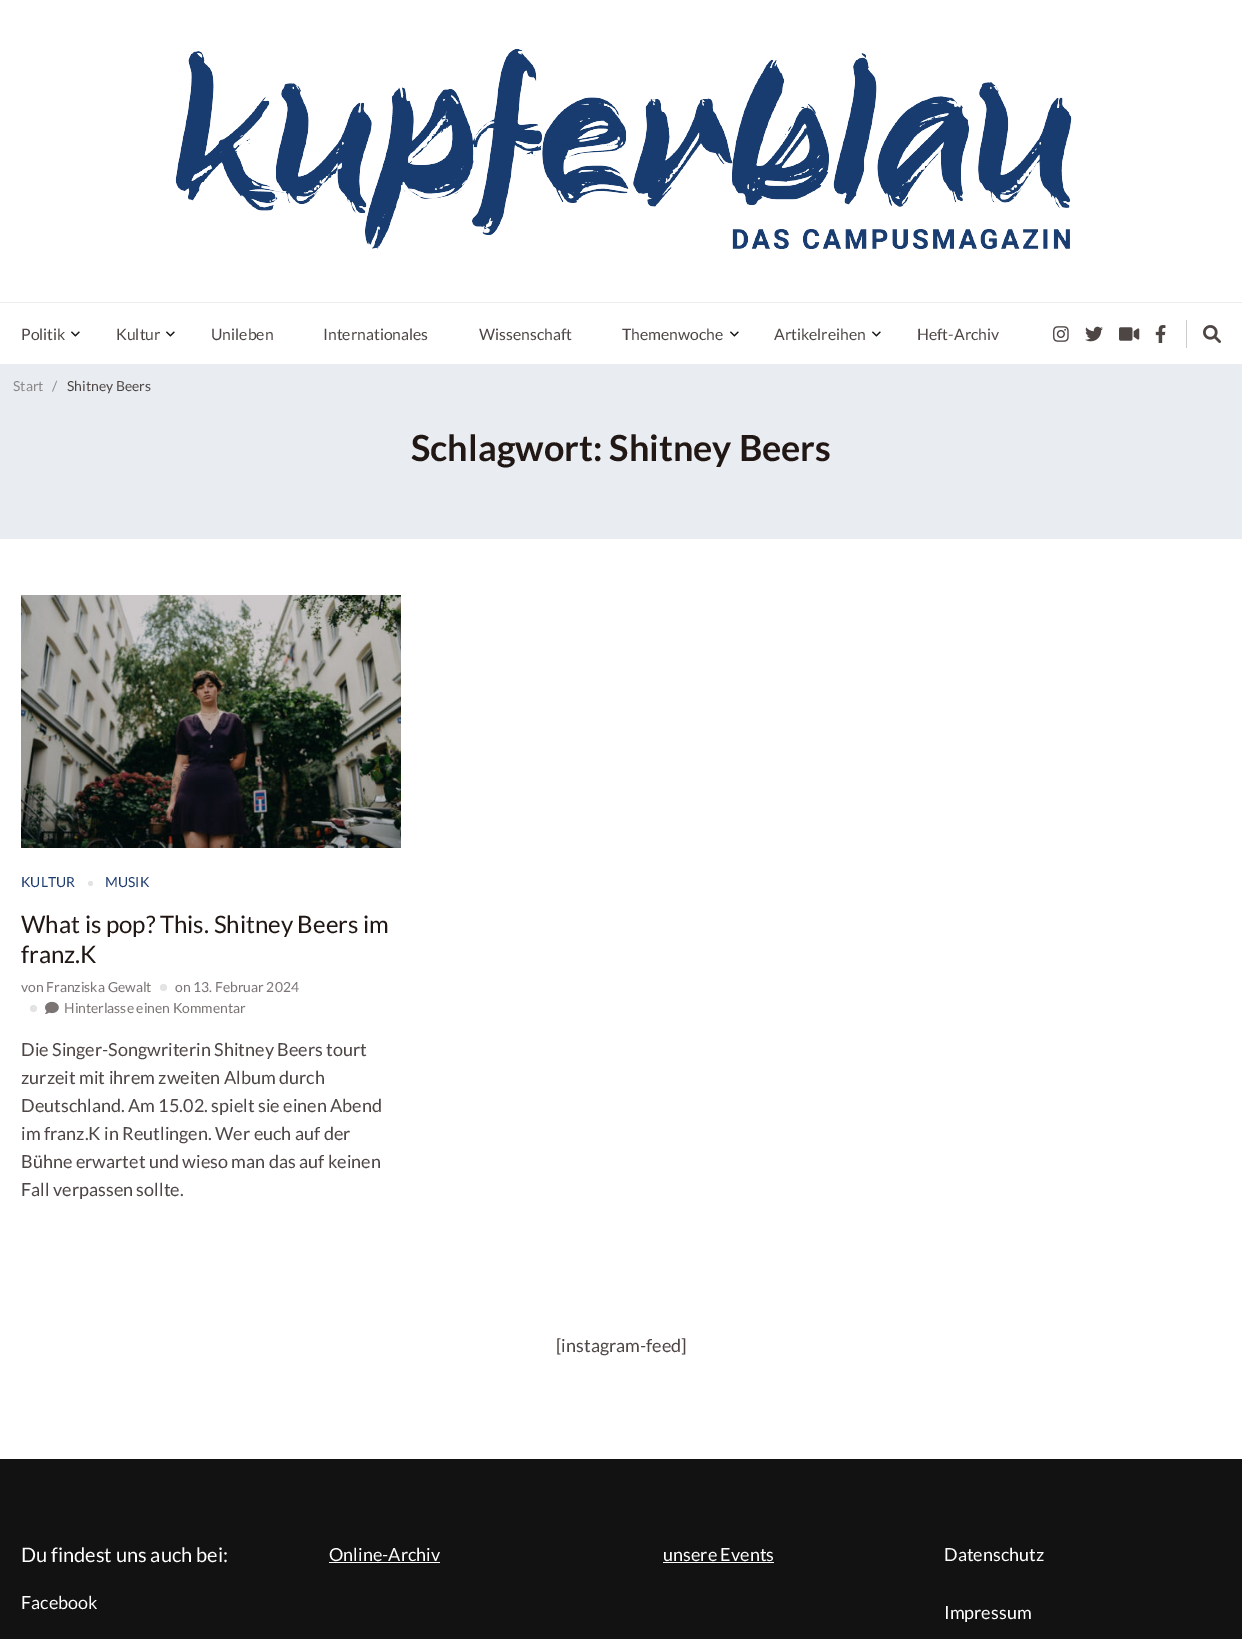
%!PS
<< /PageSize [1242 1639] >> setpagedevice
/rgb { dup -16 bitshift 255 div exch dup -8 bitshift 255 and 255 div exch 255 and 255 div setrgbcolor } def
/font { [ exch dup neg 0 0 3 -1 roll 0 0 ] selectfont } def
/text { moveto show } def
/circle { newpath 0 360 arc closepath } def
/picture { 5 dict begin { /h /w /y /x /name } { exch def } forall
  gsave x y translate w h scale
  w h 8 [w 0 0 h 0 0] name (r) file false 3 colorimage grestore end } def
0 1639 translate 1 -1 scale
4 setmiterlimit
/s1 { /Lato-Regular 15.75 font 16#4D4644 rgb } def
/s2 { /Lato-Regular 13.9 font 16#8B8889 rgb } def
/s3 { /Lato-Regular 13.9 font 16#4D4644 rgb } def
/s4 { /Lato-Bold 36 font 16#211815 rgb } def
/s5 { /Lato-Regular 13.9 font 16#1D3C70 rgb } def
/s6 { /Lato-Regular 24 font 16#211815 rgb } def
/s7 { /Lato-Regular 13.9 font 16#7A7473 rgb } def
/s8 { /Lato-Regular 18 font 16#4D4644 rgb } def
/s9 { /Lato-Regular 20 font 16#FFFFFF rgb } def
/s10 { /Lato-Regular 18 font 16#FFFFFF rgb } def
16#FFFFFF rgb
0 0 1242 1639 rectfill
(pic1.raw) 175 49 897 201 picture
16#EDEDEC rgb
0 302 1242 1 rectfill
s1
(Politik) 21 340 text
(pic2.raw) 71 331 9 6 picture
(Kultur) 116 340 text
(pic2.raw) 166 331 9 6 picture
(Unileben) 211 340 text
(Internationales) 323 340 text
(Wissenschaft) 479 340 text
(Themenwoche) 622 340 text
(pic2.raw) 730 331 9 6 picture
(Artikelreihen) 774 340 text
(pic2.raw) 872 331 9 6 picture
(Heft-Archiv) 917 340 text
(pic3.raw) 1053 326 16 16 picture
(pic4.raw) 1085 326 18 16 picture
(pic5.raw) 1119 327 21 14 picture
(pic6.raw) 1155 325 11 18 picture
16#CCCCCC rgb
1186 320 1 28 rectfill
(pic7.raw) 1203 325 18 18 picture
16#E9ECF1 rgb
0 364 1242 175 rectfill
s2
(Start) 13 391 text
(/) 52 391 text
s3
(Shitney Beers) 67 391 text
s4
(Schlagwort: Shitney Beers) 411 461 text
(pic8.raw) 21 595 380 253 picture
s5
(KULTUR) 21 887 text
16#E4E3E3 rgb
90.5 883.5 2.5 circle fill
s5
(MUSIK) 105 887 text
s6
(What is pop? This. Shitney Beers im) 21 933 text
(franz.K) 21 963 text
s7
(von Franziska Gewalt) 21 992 text
16#E4E3E3 rgb
163.5 987.5 3.5 circle fill
s7
(on 13. Februar 2024) 175 992 text
16#E4E3E3 rgb
33.5 1008.5 3.5 circle fill
(pic9.raw) 45 1001 14 13 picture
s7
(Hinterlasse einen Kommentar) 64 1013 text
s8
(Die Singer-Songwriterin Shitney Beers tourt) 21 1056 text
(zurzeit mit ihrem zweiten Album durch) 21 1084 text
(Deutschland. Am 15.02. spielt sie einen Abend) 21 1112 text
(im franz.K in Reutlingen. Wer euch auf der) 21 1140 text
(Bühne erwartet und wieso man das auf keinen) 21 1168 text
(Fall verpassen sollte.) 21 1196 text
([instagram-feed]) 556 1352 text
16#121212 rgb
0 1459 1242 180 rectfill
s9
(Du findest uns auch bei:) 21 1562 text
s10
(Facebook) 21 1609 text
(Online-Archiv) 329 1561 text
329 1562 111 1 rectfill
(unsere Events) 663 1561 text
663 1562 111 1 rectfill
(Datenschutz) 944 1561 text
(Impressum) 944 1619 text
showpage
